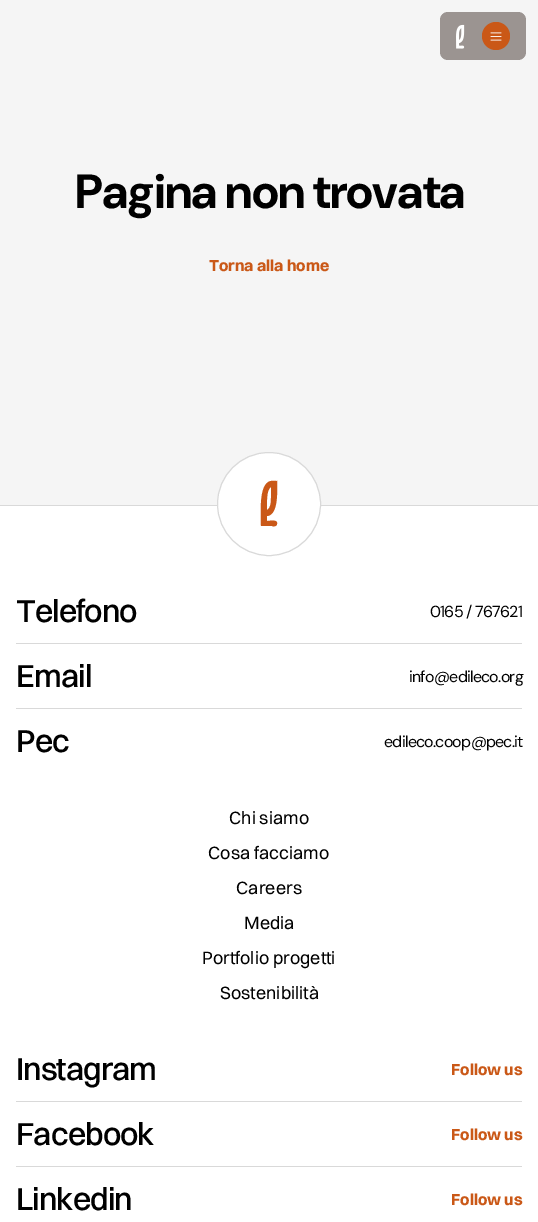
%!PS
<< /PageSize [538 1222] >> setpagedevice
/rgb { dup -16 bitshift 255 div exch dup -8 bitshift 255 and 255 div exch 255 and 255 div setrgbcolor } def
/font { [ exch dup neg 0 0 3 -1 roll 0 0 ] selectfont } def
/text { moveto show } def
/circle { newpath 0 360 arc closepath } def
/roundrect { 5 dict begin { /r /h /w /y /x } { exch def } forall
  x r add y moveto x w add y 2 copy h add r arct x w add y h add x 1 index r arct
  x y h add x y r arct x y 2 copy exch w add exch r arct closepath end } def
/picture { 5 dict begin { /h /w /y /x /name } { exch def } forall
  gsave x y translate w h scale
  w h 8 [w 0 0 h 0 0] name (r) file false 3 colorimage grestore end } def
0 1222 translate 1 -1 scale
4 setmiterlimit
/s1 { /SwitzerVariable-Bold 16 font 16#CA5817 rgb } def
/s2 { /SwitzerVariable-Regular 18 font 16#000000 rgb } def
16#F5F5F5 rgb
0 0 538 1222 rectfill
16#9B9491 rgb
440 12 86 48 8 roundrect fill
(pic1.raw) 456 24 9 25 picture
16#CA5817 rgb
496 36 14 circle fill
(pic2.raw) 490 32 12 9 picture
/DMSans-Bold 48 font
16#000000 rgb
75 208 moveto -0.75 0 (Pagina non trovata) ashow
s1
(Torna alla home) 209 271 text
16#FFFFFF rgb
0 506 538 716 rectfill
16#D9D9D9 rgb
0 505 538 1 rectfill
16#FFFFFF rgb
269 504 51.5 circle gsave fill grestore
16#D9D9D9 rgb
stroke
16#CA5817 rgb
271 498 moveto 271 501 271 508 267 510 curveto 267 503 266 490 271 487 curveto 271 498 lineto 277 481 moveto 273 481 270 480 267 483 curveto 259 490 261 515 261 526 curveto 272 526 lineto 274 527 277 526 277 524 curveto 278 519 270 521 267 521 curveto 267 516 lineto 279 515 277 489 277 480 curveto fill
16#D9D9D9 rgb
16 643 506 1 rectfill
/SwitzerVariable-Medium 32 font
16#000000 rgb
16 622 moveto -1 0 (Telefono) ashow
/DMSans-Regular 16 font
430 617 moveto -0.75 0 (0165 / 767621) ashow
16#D9D9D9 rgb
16 708 506 1 rectfill
/SwitzerVariable-Medium 32 font
16#000000 rgb
16 687 moveto -1 0 (Email) ashow
/DMSans-Regular 16 font
409 682 moveto -0.75 0 (info@edileco.org) ashow
/SwitzerVariable-Medium 32 font
16 752 moveto -1 0 (Pec) ashow
/DMSans-Regular 16 font
384 747 moveto -0.75 0 (edileco.coop@pec.it) ashow
s2
(Chi siamo) 229 824 text
(Cosa facciamo) 208 859 text
(Careers) 236 894 text
(Media) 244 929 text
(Portfolio progetti) 202 964 text
(Sostenibilità) 220 999 text
16#D9D9D9 rgb
16 1101 506 1 rectfill
/SwitzerVariable-Medium 32 font
16#000000 rgb
16 1080 moveto -1 0 (Instagram) ashow
s1
(Follow us) 451 1075 text
16#D9D9D9 rgb
16 1166 506 1 rectfill
/SwitzerVariable-Medium 32 font
16#000000 rgb
16 1145 moveto -1 0 (Facebook) ashow
s1
(Follow us) 451 1140 text
/SwitzerVariable-Medium 32 font
16#000000 rgb
16 1210 moveto -1 0 (Linkedin) ashow
s1
(Follow us) 451 1205 text
showpage
